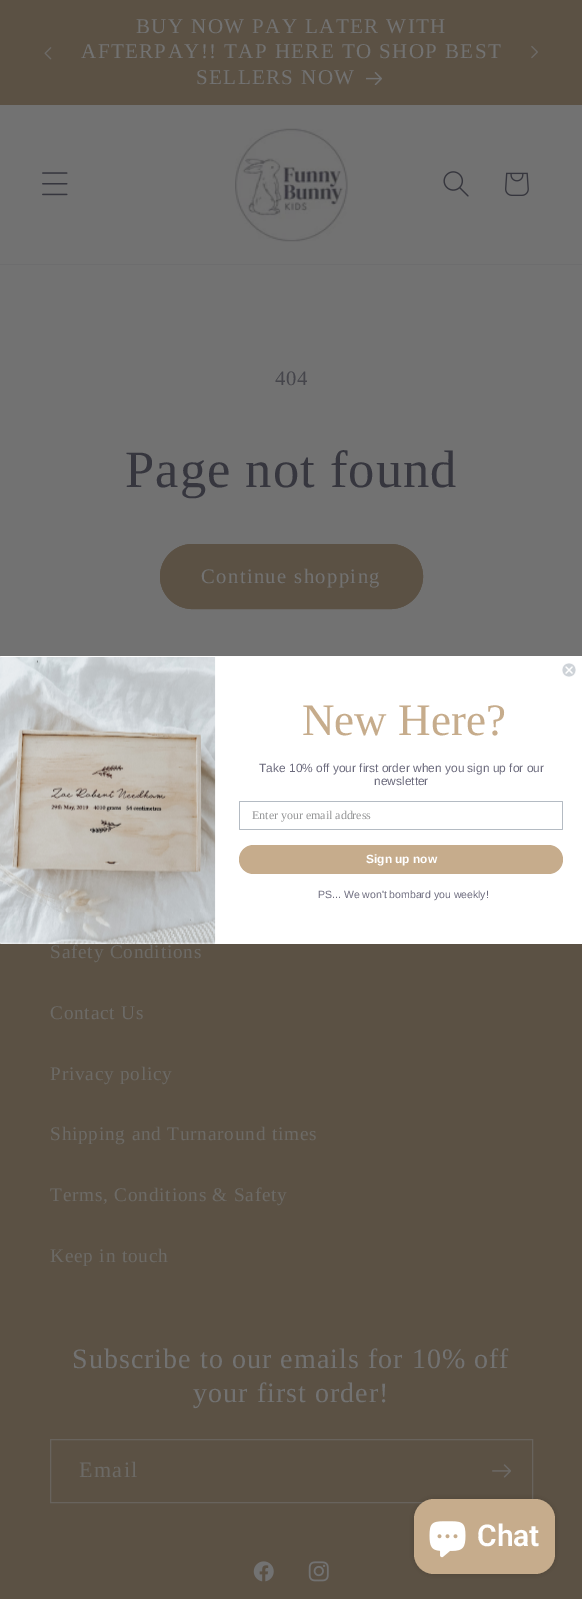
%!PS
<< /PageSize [582 1599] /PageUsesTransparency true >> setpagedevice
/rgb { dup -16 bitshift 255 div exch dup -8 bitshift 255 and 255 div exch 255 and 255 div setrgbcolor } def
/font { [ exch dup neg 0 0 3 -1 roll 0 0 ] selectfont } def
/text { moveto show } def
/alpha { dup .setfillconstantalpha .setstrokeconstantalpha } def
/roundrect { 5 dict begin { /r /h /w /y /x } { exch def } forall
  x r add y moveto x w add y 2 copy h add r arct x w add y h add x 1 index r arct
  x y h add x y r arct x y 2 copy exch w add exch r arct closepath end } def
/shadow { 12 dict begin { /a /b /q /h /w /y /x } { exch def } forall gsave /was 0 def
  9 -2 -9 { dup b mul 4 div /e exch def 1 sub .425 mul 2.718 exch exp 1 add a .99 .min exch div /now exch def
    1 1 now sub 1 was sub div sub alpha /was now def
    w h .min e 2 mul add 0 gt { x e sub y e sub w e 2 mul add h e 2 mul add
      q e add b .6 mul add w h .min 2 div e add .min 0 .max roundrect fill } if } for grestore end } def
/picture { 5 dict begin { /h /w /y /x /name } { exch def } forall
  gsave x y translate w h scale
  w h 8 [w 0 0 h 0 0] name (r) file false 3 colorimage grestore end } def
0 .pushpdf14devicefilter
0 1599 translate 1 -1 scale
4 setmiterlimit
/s1 { /LiberationSerif-Regular 45 font 16#C6AC8C rgb } def
/s2 { /LiberationSans-Regular 11.95 font 16#6C6B7D rgb } def
/s3 { /LiberationSerif-Regular 11.95 font 16#949596 rgb } def
/s4 { /LiberationSans-Bold 11.95 font 16#FFFFFF rgb } def
/s5 { /LiberationSans-Regular 10.5 font 16#6C6B7D rgb } def
/s6 { /Roboto-SemiBold 30 font 16#FFFFFF rgb } def
16#727272 rgb
0 0 582 1599 rectfill
16#5B5144 rgb
0 0 582 105 rectfill
(pic1.raw) 44 47 8 13 picture
/LiberationSerif-Regular 21 font
16#727272 rgb
136 33 moveto 1.4 0 (BUY NOW PAY LATER WITH) ashow
81 58 moveto 1.4 0 (AFTERPAY!! TAP HERE TO SHOP BEST) ashow
196 84 moveto 1.4 0 (SELLERS NOW) ashow
(pic2.raw) 366 72 16 13 picture
(pic3.raw) 531 45 7 14 picture
16#6D6D6E rgb
0 264 582 1 rectfill
(pic4.raw) 42 172 26 24 picture
(pic5.raw) 235 128 113 114 picture
(pic6.raw) 443 171 26 26 picture
(pic7.raw) 505 172 24 24 picture
/LiberationSerif-Regular 20.6 font
16#45454B rgb
275 385 moveto 0.8 0 (404) ashow
/LiberationSerif-Regular 52.5 font
16#36363E rgb
125 487 moveto 1.05 0 (Page not found) ashow
16#5B5144 rgb
160 544 263 65 32.5 roundrect fill
160.5 544.5 262 64 32 roundrect stroke
/LiberationSerif-Regular 20.6 font
16#727272 rgb
201 583 moveto 1.4 0 (Continue shopping) ashow
16#5B5144 rgb
0 943 582 656 rectfill
16#FFFFFF rgb
0 656 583 288 1 roundrect fill
(pic8.raw) 562 663 14 14 picture
(pic9.raw) 0 657 216 287 picture
s1
(New Here?) 302 735 text
s2
(Take 10% off your first order when you sign up for our) 259 772 text
(newsletter) 374 785 text
16#B4BBC3 rgb
0.8 setlinewidth
239.4 801.4 323.2 28.2 0.6 roundrect stroke
s3
(Enter your email address) 252 819 text
16#C6AC8C rgb
239 845 324 29 14.5 roundrect fill
s4
(Sign up now) 366 863 text
s5
(PS... We won't bombard you weekly!) 318 898 text
/LiberationSerif-Regular 19.25 font
16#6C6A66 rgb
50 958 moveto 0.8 0 (Safety Conditions) ashow
50 1019 moveto 0.8 0 (Contact Us) ashow
50 1080 moveto 0.8 0 (Privacy policy) ashow
50 1140 moveto 0.8 0 (Shipping and Turnaround times) ashow
50 1201 moveto 0.8 0 (Terms, Conditions & Safety) ashow
50 1262 moveto 0.8 0 (Keep in touch) ashow
/LiberationSerif-Regular 28 font
16#727272 rgb
72 1368 moveto 1.05 0 (Subscribe to our emails for 10% off) ashow
193 1402 moveto 1.05 0 (your first order!) ashow
16#68635D rgb
1 setlinewidth
50.5 1439.5 482 63 rectstroke
/LiberationSerif-Regular 22 font
16#6C6A66 rgb
79 1477 moveto 1.4 0 (Email) ashow
(pic10.raw) 492 1464 19 14 picture
(pic11.raw) 253 1561 21 21 picture
(pic12.raw) 308 1561 21 21 picture
16#000000 rgb
414 1499 141 75 20 3 0.15 shadow
16#C6AC8C rgb
414 1499 141 75 20 roundrect fill
(pic13.raw) 429 1521 37 37 picture
s6
(Chat) 477 1546 text
.poppdf14devicefilter showpage
